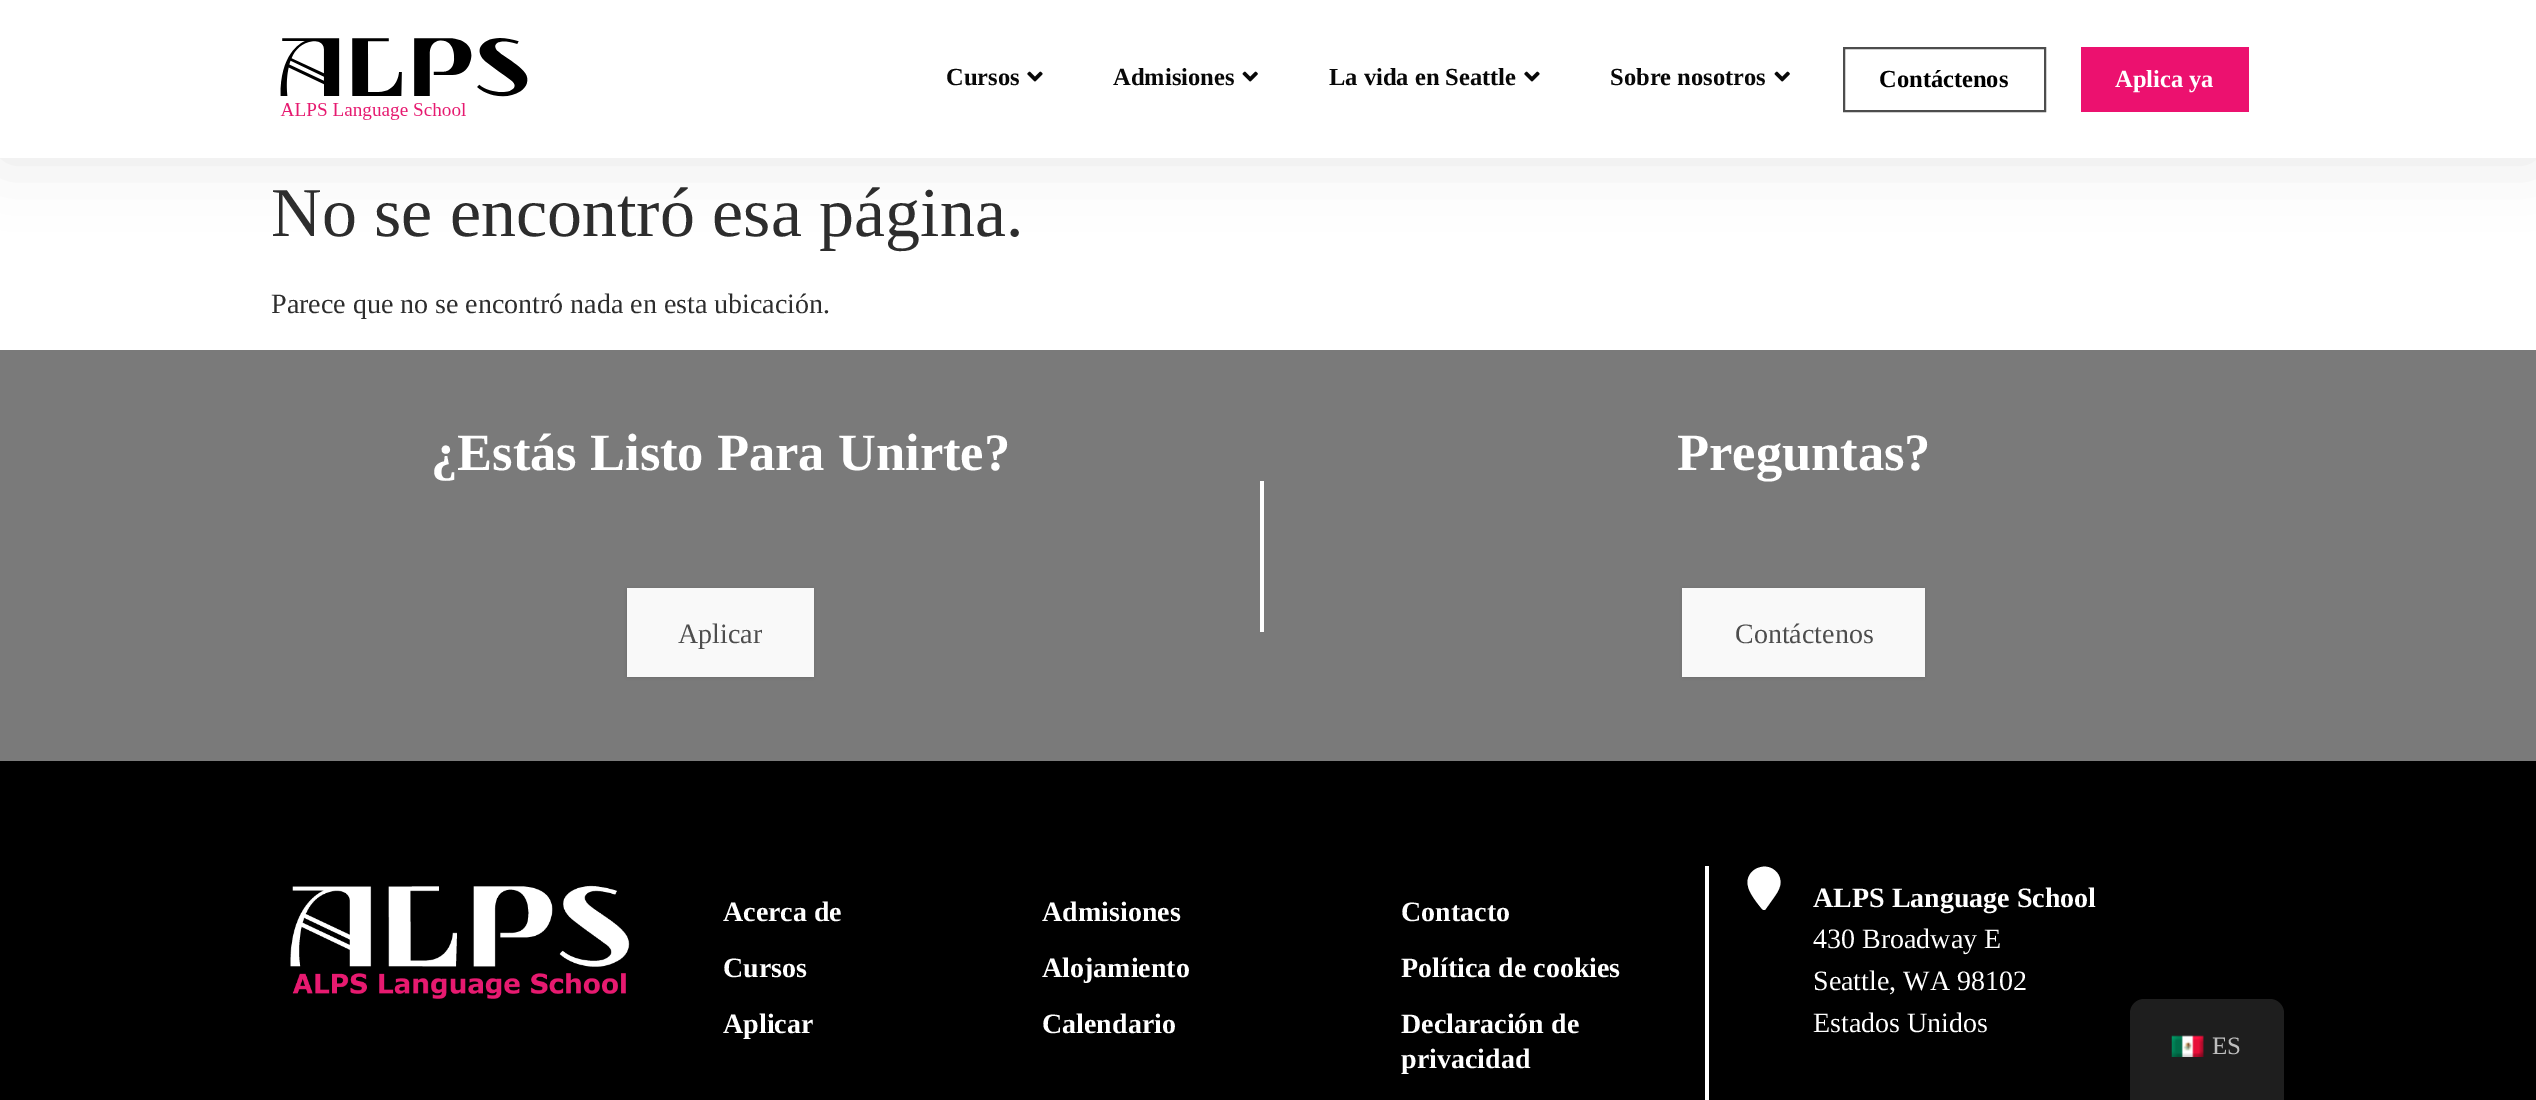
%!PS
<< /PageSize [2536 1100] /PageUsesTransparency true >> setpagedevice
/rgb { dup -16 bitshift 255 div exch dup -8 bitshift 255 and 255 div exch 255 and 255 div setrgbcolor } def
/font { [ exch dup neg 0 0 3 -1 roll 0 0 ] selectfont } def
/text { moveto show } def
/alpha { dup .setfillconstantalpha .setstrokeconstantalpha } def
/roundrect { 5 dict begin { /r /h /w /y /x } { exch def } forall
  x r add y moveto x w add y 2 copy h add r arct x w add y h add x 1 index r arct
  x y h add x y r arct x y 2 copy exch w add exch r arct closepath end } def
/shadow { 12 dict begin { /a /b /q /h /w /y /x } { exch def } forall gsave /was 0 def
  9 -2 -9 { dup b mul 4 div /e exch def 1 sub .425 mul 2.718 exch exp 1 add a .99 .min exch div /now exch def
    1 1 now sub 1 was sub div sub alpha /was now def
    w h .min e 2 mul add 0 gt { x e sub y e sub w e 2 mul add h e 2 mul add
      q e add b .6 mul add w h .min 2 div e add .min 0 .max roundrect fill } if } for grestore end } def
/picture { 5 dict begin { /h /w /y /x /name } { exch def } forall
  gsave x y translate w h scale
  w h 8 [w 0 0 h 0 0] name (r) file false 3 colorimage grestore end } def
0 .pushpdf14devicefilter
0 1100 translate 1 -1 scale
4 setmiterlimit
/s1 { /LiberationSerif-Bold 24.5 font 16#080808 rgb } def
/s2 { /LiberationSerif-Bold 24.5 font 16#000000 rgb } def
/s3 { /LiberationSerif-Bold 24.5 font 16#FFFFFF rgb } def
/s4 { /LiberationSerif-Regular 70 font 16#2D2D2D rgb } def
/s5 { /LiberationSerif-Regular 28 font 16#2D2D2D rgb } def
/s6 { /LiberationSerif-Bold 52.5 font 16#FFFFFF rgb } def
/s7 { /LiberationSerif-Regular 28 font 16#4D4D4D rgb } def
/s8 { /LiberationSerif-Bold 28 font 16#FFFFFF rgb } def
/s9 { /LiberationSerif-Regular 28 font 16#FFFFFF rgb } def
/s10 { /LiberationSerif-Regular 25 font 16#BDBDBD rgb } def
16#FFFFFF rgb
0 0 2536 1100 rectfill
16#000000 rgb
0 0 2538 158 0 33 0.1 shadow
16#FFFFFF rgb
0 0 2536 158 rectfill
(pic1.raw) 280 38 248 82 picture
s1
(Cursos) 946 85 text
(pic2.raw) 1027 71 16 11 picture
(Admisiones) 1113 85 text
(pic3.raw) 1242 71 16 11 picture
(La vida en Seattle) 1329 85 text
(pic2.raw) 1524 71 16 11 picture
(Sobre nosotros) 1610 85 text
(pic3.raw) 1774 71 16 11 picture
16#4D4D4D rgb
2 setlinewidth
1844 48 201 63 rectstroke
s2
(Contáctenos) 1879 87 text
16#EC116F rgb
2081 47 168 65 rectfill
s3
(Aplica ya) 2115 87 text
s4
(No se encontró esa página.) 271 236 text
s5
(Parece que no se encontró nada en esta ubicación.) 271 313 text
16#7A7A7A rgb
0 350 2536 411 rectfill
s6
(¿Estás Listo Para Unirte?) 431 470 text
16#000000 rgb
628 590 184 86 0 2.5 0.2 shadow
16#F9F9F9 rgb
627 588 187 89 rectfill
s7
(Aplicar) 678 643 text
16#FFFFFF rgb
1260 481 4 151 rectfill
s6
(Preguntas?) 1677 470 text
16#000000 rgb
1684 590 239 86 0 2.5 0.2 shadow
16#F9F9F9 rgb
1682 588 243 89 rectfill
s7
(Contáctenos) 1735 643 text
16#000000 rgb
0 761 2536 339 rectfill
(pic4.raw) 290 885 340 114 picture
s8
(Acerca de) 723 921 text
(Cursos) 723 977 text
(Aplicar) 723 1033 text
(Admisiones) 1042 921 text
(Alojamiento) 1042 977 text
(Calendario) 1042 1033 text
1705 866 4 234 rectfill
(Contacto) 1401 921 text
(Política de cookies) 1401 977 text
(Declaración de) 1401 1033 text
(privacidad) 1401 1068 text
1762 909 moveto 1758 904 1749 893 1748 886 curveto 1744 869 1768 859 1778 874 curveto 1785 885 1776 894 1770 903 curveto 1765 910 lineto 1764 910 1763 910 1762 909 curveto closepath fill
(ALPS Language School) 1813 907 text
s9
(430 Broadway E) 1813 948 text
(Seattle, WA 98102) 1813 990 text
(Estados Unidos) 1813 1032 text
16#1E1E1E rgb
2144 999 moveto 2270 999 lineto 2277.5 999 2284 1005.5 2284 1013 curveto 2284 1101 lineto 2130 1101 lineto 2130 1013 lineto 2130 1005.5 2136.5 999 2144 999 curveto closepath fill
(pic5.raw) 2171 1035 33 22 picture
s10
(ES) 2212 1054 text
.poppdf14devicefilter showpage
